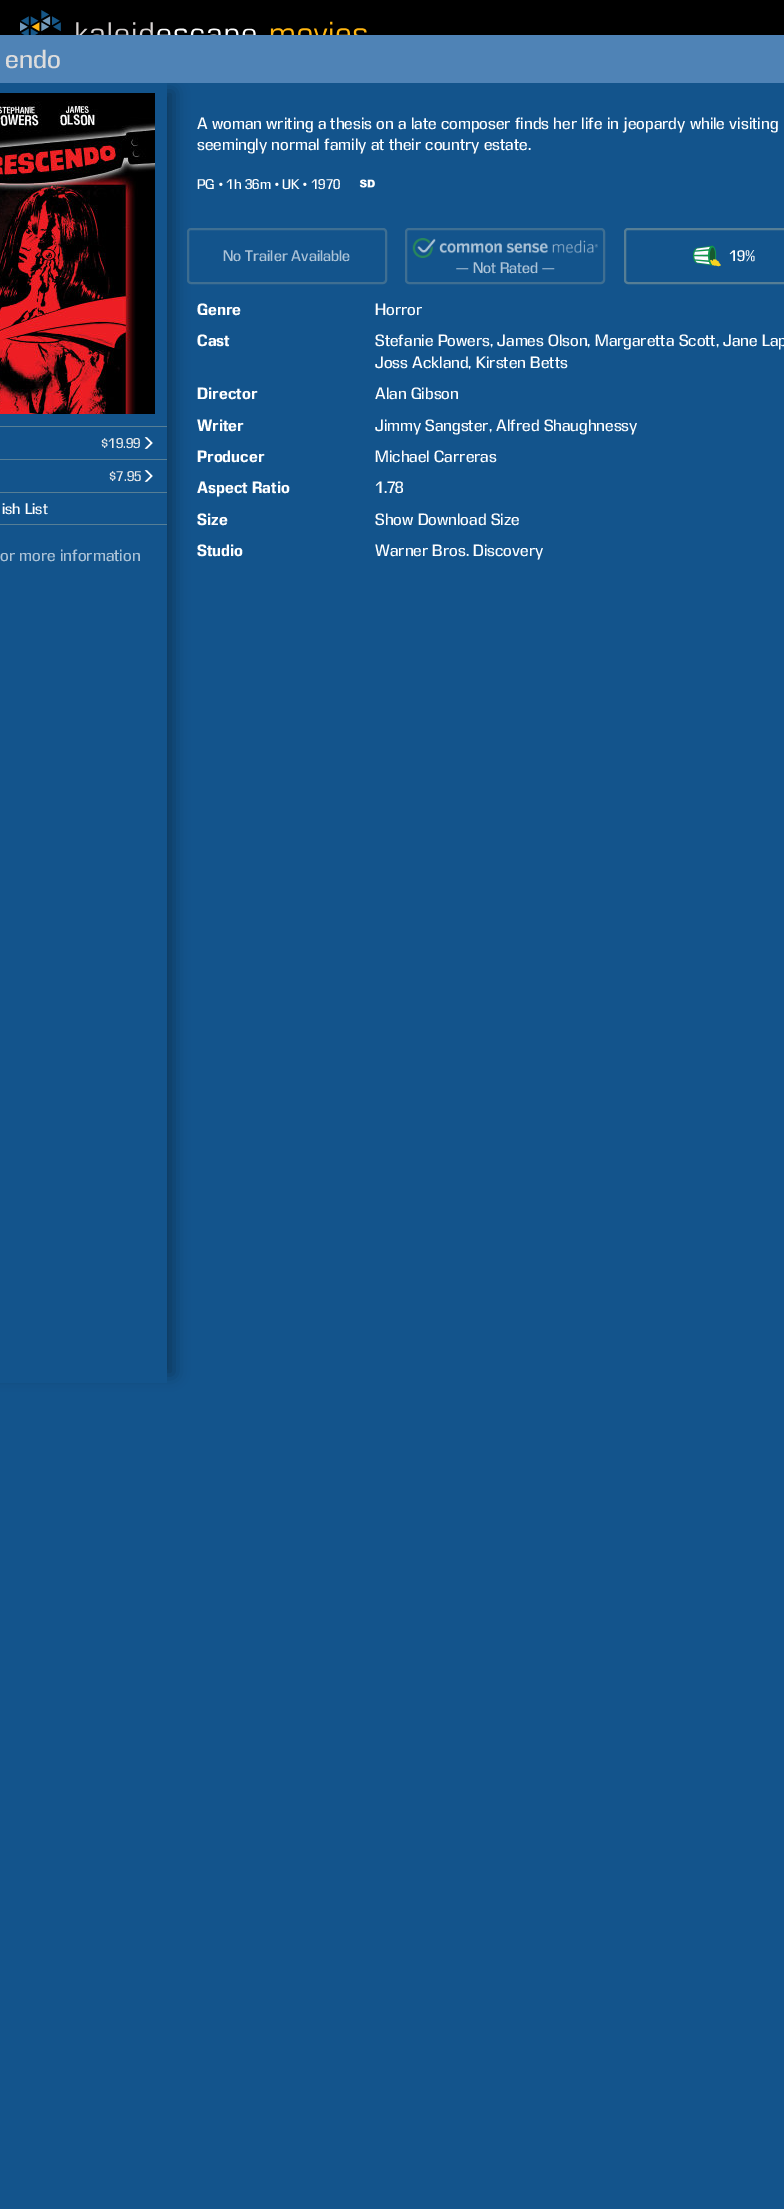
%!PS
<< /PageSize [784 2209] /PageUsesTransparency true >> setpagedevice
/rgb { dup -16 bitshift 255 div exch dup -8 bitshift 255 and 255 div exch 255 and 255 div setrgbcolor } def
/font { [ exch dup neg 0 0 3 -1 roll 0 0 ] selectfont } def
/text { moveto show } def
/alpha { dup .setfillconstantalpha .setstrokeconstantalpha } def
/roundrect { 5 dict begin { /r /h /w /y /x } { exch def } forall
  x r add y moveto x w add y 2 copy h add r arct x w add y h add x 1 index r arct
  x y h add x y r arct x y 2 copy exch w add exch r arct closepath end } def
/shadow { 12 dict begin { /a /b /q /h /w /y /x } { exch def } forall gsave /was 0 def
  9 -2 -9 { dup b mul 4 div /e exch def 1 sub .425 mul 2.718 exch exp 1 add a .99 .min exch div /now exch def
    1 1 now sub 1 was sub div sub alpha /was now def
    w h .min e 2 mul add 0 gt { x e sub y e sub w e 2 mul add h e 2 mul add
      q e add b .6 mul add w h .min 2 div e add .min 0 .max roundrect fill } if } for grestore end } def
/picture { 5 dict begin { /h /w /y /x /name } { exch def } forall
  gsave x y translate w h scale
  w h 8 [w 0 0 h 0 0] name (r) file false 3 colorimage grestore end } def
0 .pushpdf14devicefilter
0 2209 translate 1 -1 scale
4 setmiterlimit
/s1 { /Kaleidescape-Regular 24 font 16#DCDCDC rgb } def
/s2 { /Kaleidescape-Regular 13 font 16#EBEBEB rgb } def
/s3 { /Kaleidescape-Regular 14 font 16#FFFFFF rgb } def
/s4 { /Kaleidescape-Regular 15 font 16#ACC3D7 rgb } def
/s5 { /Kaleidescape-Regular 15 font 16#FFFFFF rgb } def
/s6 { /Kaleidescape-Regular 13 font 16#FFFFFF rgb } def
/s7 { /Kaleidescape-Regular 14 font 16#ACC3D7 rgb } def
/s8 { /Kaleidescape-Bold 15 font 16#FFFFFF rgb } def
16#000000 rgb
0 0 784 2209 rectfill
(pic1.raw) 20 10 347 25 picture
16#13548C rgb
0 83 784 2126 rectfill
16#3F6F92 rgb
2 setlinewidth
188 229 198 54 3 roundrect stroke
gsave
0 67 moveto 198 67 lineto 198 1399 lineto 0 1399 lineto closepath -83 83 moveto 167 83 lineto 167 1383 lineto -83 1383 lineto closepath eoclip newpath
16#0D395F rgb
-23 91 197 1284 0 7.5 1 shadow
grestore
16#4F83B6 rgb
0 35 784 48 rectfill
s1
(endo) 5 68 text
(pic2.raw) 0 93 155 321 picture
16#567E95 rgb
0 426 167 1 rectfill
s2
($19.99) 101 448 text
(pic3.raw) 144 437 9 12 picture
16#567E95 rgb
0 459 167 1 rectfill
s2
($7.95) 109 481 text
(pic3.raw) 144 470 9 12 picture
16#567E95 rgb
0 492 167 1 rectfill
0 524 167 1 rectfill
s3
(ish List) 2 514 text
s4
(or more information) 0 561 text
s5
(A woman writing a thesis on a late composer finds her life in jeopardy while visiting) 197 129 text
(seemingly normal family at their country estate.) 197 150 text
s6
(PG) 197 189 text
(• 1h 36m • UK • 1970) 219 189 text
(pic4.raw) 359 179 16 9 picture
s7
(No Trailer Available) 223 261 text
16#567E95 rgb
625 229 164 54 3 roundrect stroke
(pic5.raw) 693 245 28 22 picture
s3
(19%) 729 261 text
16#3F6F92 rgb
406 229 198 54 3 roundrect stroke
(pic6.raw) 412 238 186 20 picture
s7
(— Not Rated —) 456 273 text
s8
(Genre) 197 315 text
s5
(Horror) 375 315 text
s8
(Cast) 197 346 text
s5
(Stefanie Powers, James Olson, Margaretta Scott, Jane Lap) 375 346 text
(Joss Ackland, Kirsten Betts) 375 368 text
s8
(Director) 197 399 text
s5
(Alan Gibson) 375 399 text
s8
(Writer) 197 431 text
s5
(Jimmy Sangster, Alfred Shaughnessy) 375 431 text
s8
(Producer) 197 462 text
s5
(Michael Carreras) 375 462 text
s8
(Aspect Ratio) 197 493 text
s5
(1.78) 375 493 text
s8
(Size) 197 525 text
s5
(Show Download Size) 375 525 text
s8
(Studio) 197 556 text
s5
(Warner Bros. Discovery) 375 556 text
.poppdf14devicefilter showpage
